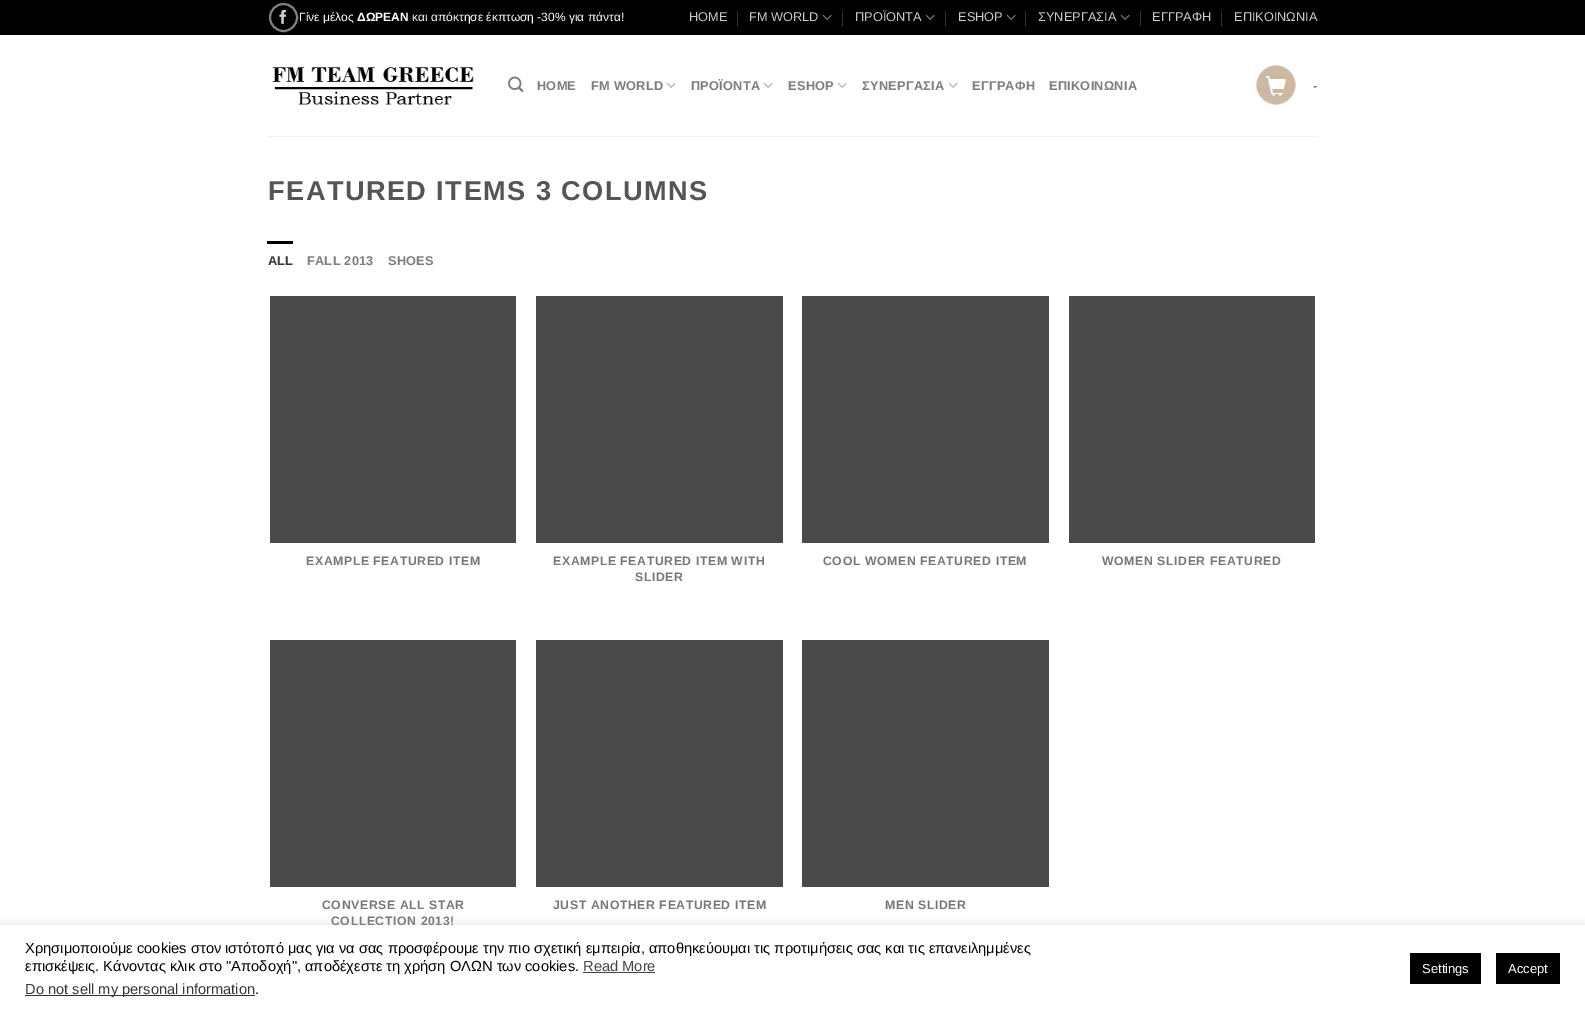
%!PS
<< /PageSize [1585 1012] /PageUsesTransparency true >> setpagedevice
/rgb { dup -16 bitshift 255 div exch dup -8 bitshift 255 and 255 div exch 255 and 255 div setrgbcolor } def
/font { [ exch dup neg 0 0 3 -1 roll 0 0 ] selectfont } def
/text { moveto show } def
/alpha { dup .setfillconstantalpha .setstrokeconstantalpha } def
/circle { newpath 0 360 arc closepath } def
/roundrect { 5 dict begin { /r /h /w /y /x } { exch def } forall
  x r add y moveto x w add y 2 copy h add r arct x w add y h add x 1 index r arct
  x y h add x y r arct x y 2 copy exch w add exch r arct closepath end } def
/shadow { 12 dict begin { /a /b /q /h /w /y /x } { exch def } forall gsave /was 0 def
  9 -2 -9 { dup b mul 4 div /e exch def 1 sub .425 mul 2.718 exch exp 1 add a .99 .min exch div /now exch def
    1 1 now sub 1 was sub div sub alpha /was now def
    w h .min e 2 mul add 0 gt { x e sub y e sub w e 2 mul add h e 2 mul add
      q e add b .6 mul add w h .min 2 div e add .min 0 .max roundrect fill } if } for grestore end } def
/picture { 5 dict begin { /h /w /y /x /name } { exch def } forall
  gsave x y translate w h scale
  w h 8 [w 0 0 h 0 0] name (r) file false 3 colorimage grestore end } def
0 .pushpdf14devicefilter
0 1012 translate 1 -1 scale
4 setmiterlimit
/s1 { /LiberationSans-Regular 12 font 16#FFFFFF rgb } def
/s2 { /LiberationSans-Bold 12 font 16#FFFFFF rgb } def
/s3 { /LiberationSans-Regular 12.75 font 16#CCCCCC rgb } def
/s4 { /LiberationSans-Regular 14.67 font 16#000000 rgb } def
/s5 { /LiberationSans-Regular 14.67 font 16#444444 rgb } def
/s6 { /LiberationSans-Regular 14.67 font 16#363636 rgb } def
/s7 { /LiberationSans-Regular 13 font 16#FFFFFF rgb } def
16#FFFFFF rgb
0 0 1585 1012 rectfill
16#000000 rgb
0 0 1585 35 rectfill
16#808080 rgb
2 setlinewidth
283.5 17.5 13.5 circle stroke
(pic1.raw) 279 9 7 15 picture
s1
(Γίνε μέλος) 299 21 text
s2
(ΔΩΡΕΑΝ) 357 21 text
s1
(και απόκτησε έκπτωση -30% για πάντα!) 412 21 text
s3
(HOME) 689 21 text
16#333333 rgb
737 11 1 15 rectfill
s3
(FM WORLD) 749 21 text
(pic2.raw) 822 14 10 6 picture
16#333333 rgb
842 11 1 15 rectfill
s3
(ΠΡΟΪΟΝΤΑ) 855 21 text
(pic2.raw) 925 14 10 6 picture
16#333333 rgb
945 11 1 15 rectfill
s3
(ESHOP) 958 21 text
(pic2.raw) 1006 14 10 6 picture
16#333333 rgb
1025 11 1 15 rectfill
s3
(ΣΥΝΕΡΓΑΣΙΑ) 1038 21 text
(pic2.raw) 1120 14 10 6 picture
16#333333 rgb
1140 11 1 15 rectfill
s3
(ΕΓΓΡΑΦΗ) 1152 21 text
16#333333 rgb
1221 11 1 15 rectfill
s3
(ΕΠΙΚΟΙΝΩΝΙΑ) 1234 21 text
(pic3.raw) 272 67 202 38 picture
(pic4.raw) 508 76 16 16 picture
/LiberationSans-Bold 12.75 font
16#7D7D7D rgb
537 90 moveto 0.25 0 (HOME) ashow
591 90 moveto 0.25 0 (FM WORLD) ashow
(pic5.raw) 666 82 10 6 picture
691 90 moveto 0.25 0 (ΠΡΟΪΟΝΤΑ) ashow
(pic5.raw) 763 82 10 6 picture
788 90 moveto 0.25 0 (ESHOP) ashow
(pic5.raw) 837 82 10 6 picture
862 90 moveto 0.25 0 (ΣΥΝΕΡΓΑΣΙΑ) ashow
(pic5.raw) 948 82 10 6 picture
972 90 moveto 0.25 0 (ΕΓΓΡΑΦΗ) ashow
1049 90 moveto 0.25 0 (ΕΠΙΚΟΙΝΩΝΙΑ) ashow
(pic6.raw) 1256 65 40 40 picture
1313 90 moveto 0.25 0 (-) ashow
16#F1F1F1 rgb
268 136 1050 1 rectfill
/LiberationSans-Bold 27.25 font
16#555555 rgb
268 200 moveto 1.4 0 (FEATURED ITEMS 3 COLUMNS) ashow
16#000000 rgb
267 241 26 3 rectfill
/LiberationSans-Bold 12.75 font
16#363636 rgb
268 265 moveto 0.25 0 (ALL) ashow
16#7D7D7D rgb
307 265 moveto 0.25 0 (FALL 2013) ashow
388 265 moveto 0.25 0 (SHOES) ashow
16#4A4A4A rgb
270 296 246 247 rectfill
/LiberationSans-Bold 12.25 font
16#777777 rgb
306 565 moveto 0.6 0 (EXAMPLE FEATURED ITEM) ashow
16#4A4A4A rgb
536 296 247 247 rectfill
16#777777 rgb
553 565 moveto 0.6 0 (EXAMPLE FEATURED ITEM WITH) ashow
635 581 moveto 0.6 0 (SLIDER) ashow
16#4A4A4A rgb
802 296 247 247 rectfill
16#777777 rgb
823 565 moveto 0.6 0 (COOL WOMEN FEATURED ITEM) ashow
16#4A4A4A rgb
1069 296 246 247 rectfill
16#777777 rgb
1102 565 moveto 0.6 0 (WOMEN SLIDER FEATURED) ashow
16#4A4A4A rgb
270 640 246 247 rectfill
16#777777 rgb
322 909 moveto 0.6 0 (CONVERSE ALL STAR) ashow
331 925 moveto 0.6 0 (COLLECTION 2013!) ashow
16#4A4A4A rgb
536 640 247 247 rectfill
16#777777 rgb
553 909 moveto 0.6 0 (JUST ANOTHER FEATURED ITEM) ashow
16#4A4A4A rgb
802 640 247 247 rectfill
16#777777 rgb
885 909 moveto 0.6 0 (MEN SLIDER) ashow
16#ACABAB rgb
0 924 1585 87 0 5 0.3 shadow
16#FFFFFF rgb
0 925 1585 87 rectfill
s4
(Χρησιμοποιούμε cookies στον ιστότοπό μας για να σας προσφέρουμε την πιο σχετική εμπειρία, αποθηκεύουμαι τις προτιμήσεις σας και τις επανειλημμένες) 25 953 text
(επισκέψεις. Κάνοντας κλικ στο "Αποδοχή", αποδέχεστε τη χρήση ΟΛΩΝ των cookies.) 25 971 text
s5
(Read More) 583 971 text
583 972 72 1 rectfill
16#333333 rgb
25 995 230 1 rectfill
s6
(Do not sell my personal information) 25 994 text
s4
(.) 255 994 text
1410 953 71 31 rectfill
s7
(Settings) 1422 973 text
16#000000 rgb
1496 953 64 31 rectfill
s7
(Accept) 1508 973 text
.poppdf14devicefilter showpage
